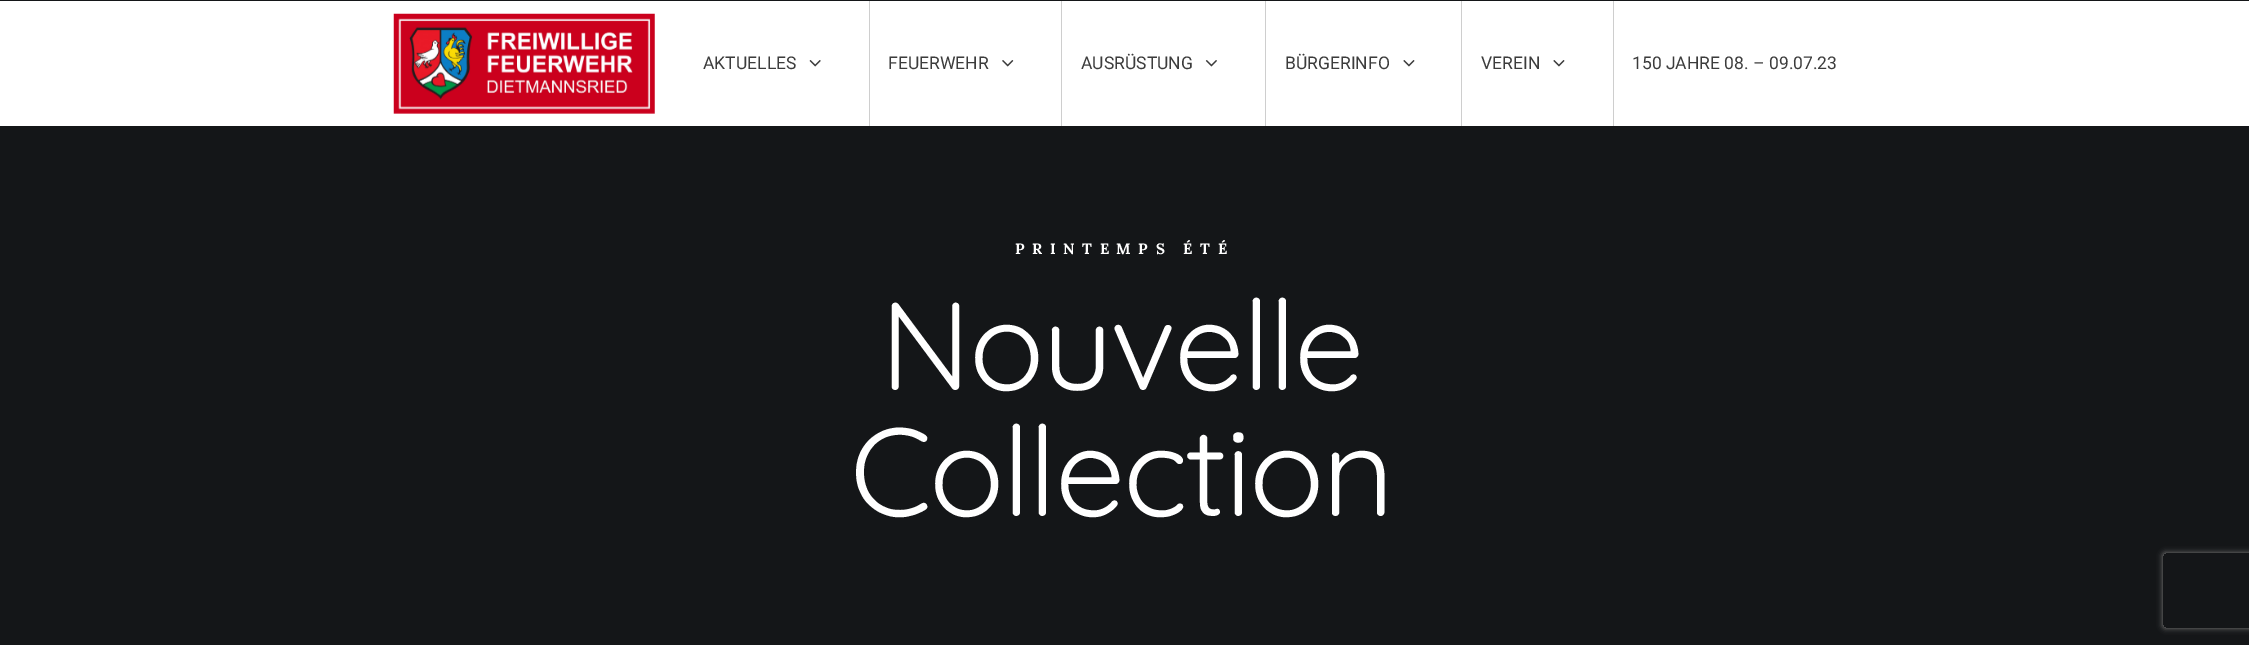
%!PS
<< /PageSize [2249 645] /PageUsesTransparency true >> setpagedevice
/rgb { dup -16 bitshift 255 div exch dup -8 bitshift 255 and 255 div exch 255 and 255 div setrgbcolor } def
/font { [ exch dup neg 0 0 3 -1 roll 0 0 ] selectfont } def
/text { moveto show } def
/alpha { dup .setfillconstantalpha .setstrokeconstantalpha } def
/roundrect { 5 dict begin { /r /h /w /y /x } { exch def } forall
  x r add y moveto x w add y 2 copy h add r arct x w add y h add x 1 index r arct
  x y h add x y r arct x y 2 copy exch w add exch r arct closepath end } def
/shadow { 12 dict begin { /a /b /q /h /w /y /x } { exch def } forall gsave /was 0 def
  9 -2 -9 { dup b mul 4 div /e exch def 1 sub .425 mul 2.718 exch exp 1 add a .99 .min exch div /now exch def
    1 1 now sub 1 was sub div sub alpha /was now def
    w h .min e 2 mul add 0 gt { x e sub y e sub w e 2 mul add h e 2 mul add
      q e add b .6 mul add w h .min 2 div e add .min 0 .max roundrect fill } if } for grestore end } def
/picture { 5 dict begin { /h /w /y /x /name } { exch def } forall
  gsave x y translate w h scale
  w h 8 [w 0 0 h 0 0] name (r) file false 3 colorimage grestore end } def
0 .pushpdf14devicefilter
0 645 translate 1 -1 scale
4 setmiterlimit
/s1 { /Roboto-Regular 17.5 font 16#3C3C3C rgb } def
16#141618 rgb
0 0 2249 645 rectfill
16#FFFFFF rgb
0 1 2249 125 rectfill
(pic1.raw) 393 13 262 101 picture
s1
(AKTUELLES) 703 69 text
(pic2.raw) 809 60 12 7 picture
16#CECECE rgb
869 1 1 125 rectfill
s1
(FEUERWEHR) 888 69 text
(pic3.raw) 1002 60 12 7 picture
16#CECECE rgb
1061 1 1 125 rectfill
s1
(AUSRÜSTUNG) 1081 69 text
(pic4.raw) 1205 60 12 7 picture
16#CECECE rgb
1265 1 1 125 rectfill
s1
(BÜRGERINFO) 1285 69 text
(pic5.raw) 1403 60 12 7 picture
16#CECECE rgb
1461 1 1 125 rectfill
s1
(VEREIN) 1481 69 text
(pic5.raw) 1553 60 12 7 picture
16#CECECE rgb
1613 1 1 125 rectfill
s1
(150 JAHRE 08. – 09.07.23) 1632 69 text
/Lora-Bold 15 font
16#FFFFFF rgb
1015 254 moveto 7.5 0 (PRINTEMPS ÉTÉ) ashow
/Quicksand-Regular 125 font
880 390 moveto -2.5 0 (Nouvelle) ashow
850 516 moveto -2.5 0 (Collection) ashow
gsave
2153 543 moveto 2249 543 lineto 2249 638 lineto 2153 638 lineto closepath 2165.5 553 moveto 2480.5 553 lineto 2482 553 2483 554 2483 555.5 curveto 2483 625.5 lineto 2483 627 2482 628 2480.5 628 curveto 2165.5 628 lineto 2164 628 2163 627 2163 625.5 curveto 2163 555.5 lineto 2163 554 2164 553 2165.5 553 curveto closepath eoclip newpath
16#808080 rgb
2163 553 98 75 2.5 3 1 shadow
grestore
.poppdf14devicefilter showpage
